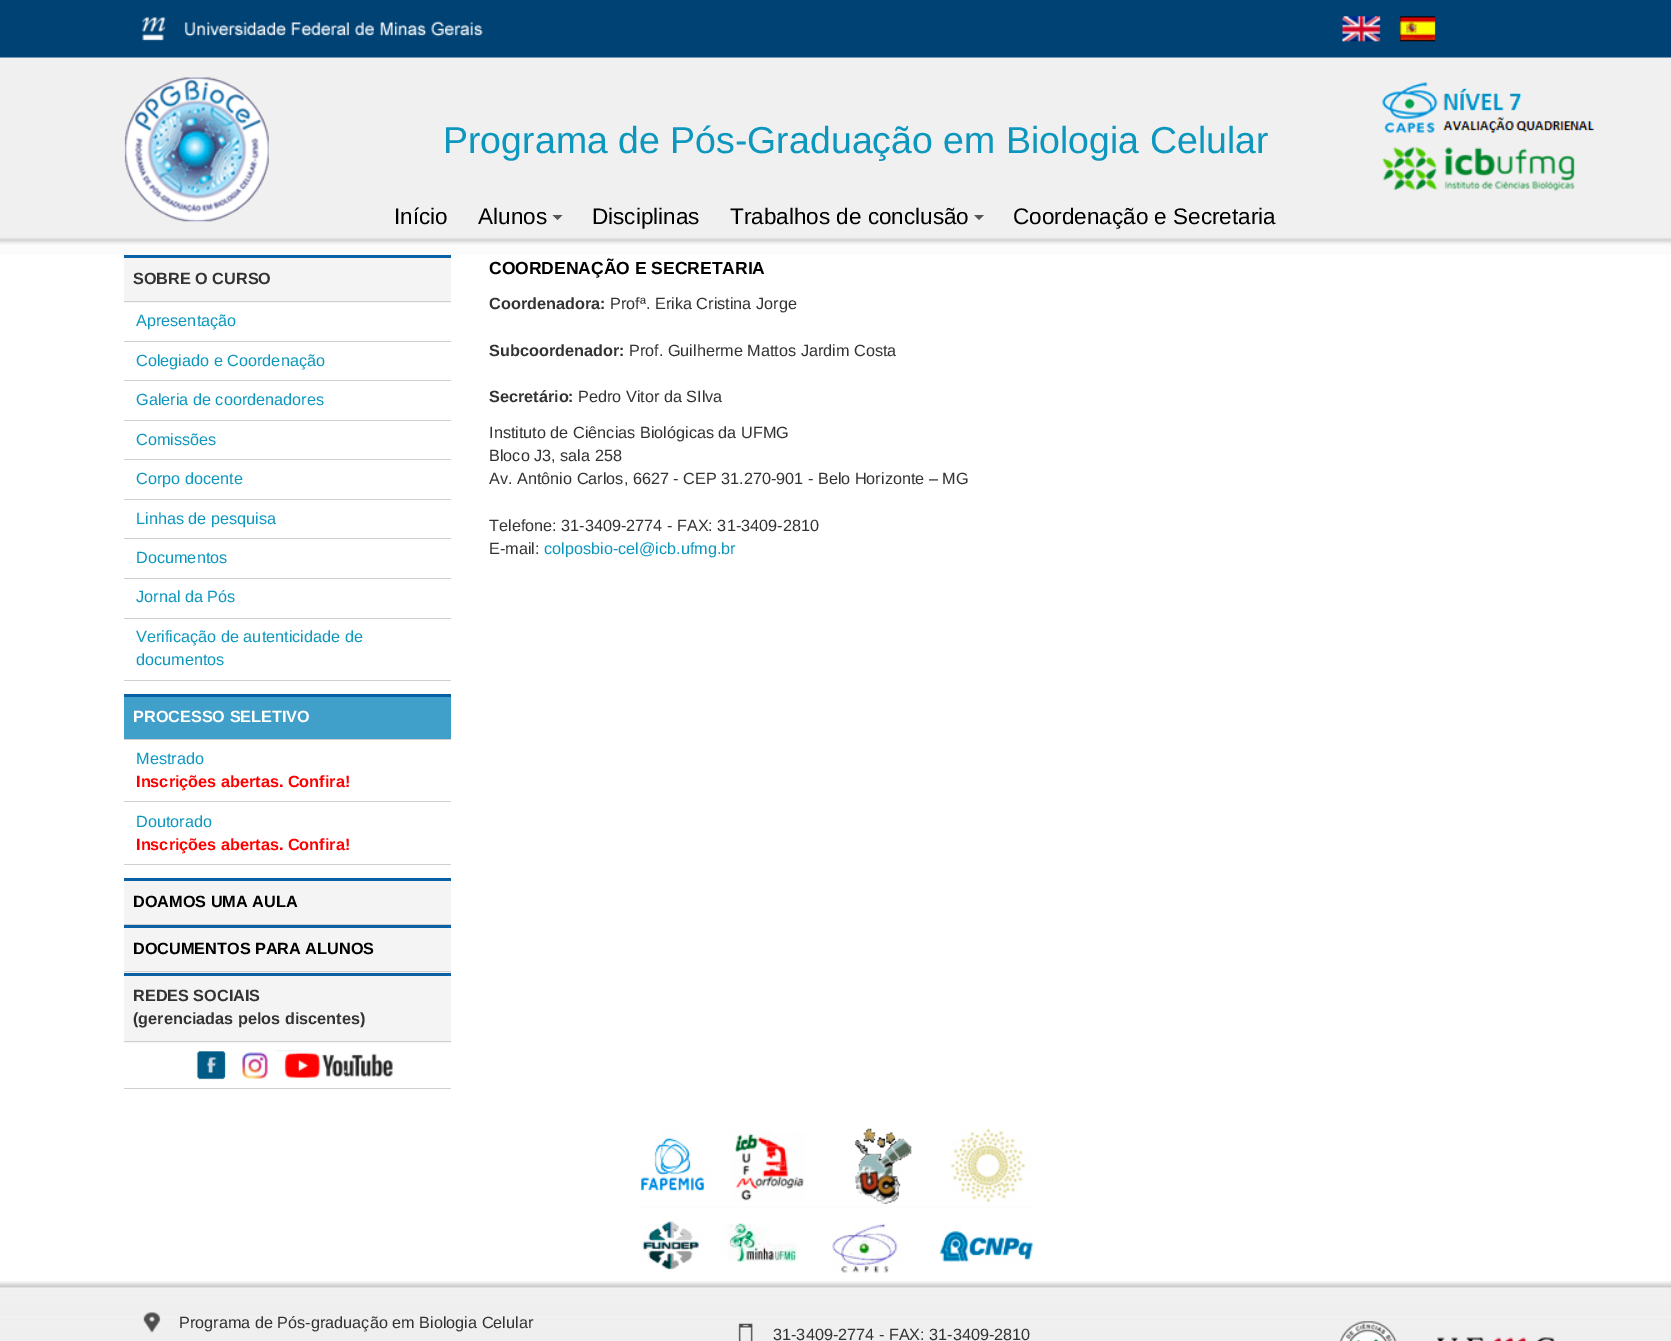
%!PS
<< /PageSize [1671 1341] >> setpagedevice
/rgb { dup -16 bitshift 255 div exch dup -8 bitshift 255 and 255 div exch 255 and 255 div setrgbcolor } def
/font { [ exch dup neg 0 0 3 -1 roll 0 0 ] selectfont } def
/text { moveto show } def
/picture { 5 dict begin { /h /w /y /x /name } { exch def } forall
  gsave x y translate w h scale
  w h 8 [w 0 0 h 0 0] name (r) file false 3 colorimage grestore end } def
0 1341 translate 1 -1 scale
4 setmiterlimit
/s1 { /LiberationSans-Regular 37.5 font 16#0D97BE rgb } def
/s2 { /LiberationSans-Regular 22.5 font 16#000000 rgb } def
/s3 { /LiberationSans-Bold 16.25 font 16#333333 rgb } def
/s4 { /LiberationSans-Regular 16.25 font 16#0D97BE rgb } def
/s5 { /LiberationSans-Bold 16.25 font 16#FFFFFF rgb } def
/s6 { /LiberationSans-Bold 16.25 font 16#FF0000 rgb } def
/s7 { /LiberationSans-Bold 16.25 font 16#000000 rgb } def
/s8 { /LiberationSans-Bold 17.5 font 16#000000 rgb } def
/s9 { /LiberationSans-Regular 16.25 font 16#333333 rgb } def
16#FFFFFF rgb
0 0 1671 1341 rectfill
16#004274 rgb
0 0 1671 58 rectfill
(pic1.raw) 142 17 341 24 picture
(pic2.raw) 1342 16 39 26 picture
(pic3.raw) 1399 16 37 26 picture
(pic4.raw) 0 57 1671 198 picture
(pic5.raw) 124 77 145 145 picture
s1
(Programa de Pós-Graduação em Biologia Celular) 443 153 text
(pic6.raw) 1382 82 212 51 picture
(pic7.raw) 1382 146 193 46 picture
s2
(Início) 394 224 text
(Alunos) 478 224 text
16#555555 rgb
552.5 215 moveto 562.5 215 lineto 557.5 220 lineto closepath fill
s2
(Disciplinas) 592 224 text
(Trabalhos de conclusão) 730 224 text
16#555555 rgb
974 215 moveto 984 215 lineto 979 220 lineto closepath fill
s2
(Coordenação e Secretaria) 1013 224 text
16#F4F4F4 rgb
124 258 327 45 rectfill
16#0960A4 rgb
124 255 327 3 rectfill
16#D0D0D0 rgb
124 301 327 1 rectfill
s3
(SOBRE O CURSO) 133 284 text
16#D0D0D0 rgb
124 341 327 1 rectfill
s4
(Apresentação) 136 326 text
16#D0D0D0 rgb
124 380 327 1 rectfill
s4
(Colegiado e Coordenação) 136 366 text
16#D0D0D0 rgb
124 420 327 1 rectfill
s4
(Galeria de coordenadores) 136 405 text
16#D0D0D0 rgb
124 459 327 1 rectfill
s4
(Comissões) 136 445 text
16#D0D0D0 rgb
124 499 327 1 rectfill
s4
(Corpo docente) 136 484 text
16#D0D0D0 rgb
124 538 327 1 rectfill
s4
(Linhas de pesquisa) 136 524 text
16#D0D0D0 rgb
124 578 327 1 rectfill
s4
(Documentos) 136 563 text
16#D0D0D0 rgb
124 618 327 1 rectfill
s4
(Jornal da Pós) 136 602 text
16#D0D0D0 rgb
124 680 327 1 rectfill
s4
(Verificação de autenticidade de) 136 642 text
(documentos) 136 665 text
16#41A0CA rgb
124 697 327 42 rectfill
16#0960A4 rgb
124 694 327 3 rectfill
16#D0D0D0 rgb
124 739 327 1 rectfill
s5
(PROCESSO SELETIVO) 133 722 text
16#D0D0D0 rgb
124 801 327 1 rectfill
s4
(Mestrado) 136 764 text
s6
(Inscrições abertas. Confira!) 136 787 text
16#D0D0D0 rgb
124 864 327 1 rectfill
s4
(Doutorado) 136 827 text
s6
(Inscrições abertas. Confira!) 136 850 text
16#F4F4F4 rgb
124 881 327 43 rectfill
16#0960A4 rgb
124 878 327 3 rectfill
16#D0D0D0 rgb
124 924 327 1 rectfill
s7
(DOAMOS UMA AULA) 133 907 text
16#F4F4F4 rgb
124 928 327 45 rectfill
16#0960A4 rgb
124 925 327 3 rectfill
16#D0D0D0 rgb
124 971 327 1 rectfill
s7
(DOCUMENTOS PARA ALUNOS) 133 954 text
16#F4F4F4 rgb
124 976 327 67 rectfill
16#0960A4 rgb
124 973 327 3 rectfill
16#D0D0D0 rgb
124 1041 327 1 rectfill
s3
(REDES SOCIAIS) 133 1001 text
(\(gerenciadas pelos discentes\)) 133 1024 text
16#D0D0D0 rgb
124 1088 327 1 rectfill
(pic8.raw) 196 1050 197 30 picture
s8
(COORDENAÇÃO E SECRETARIA) 489 274 text
s3
(Coordenadora:) 489 309 text
s9
(Profª. Erika Cristina Jorge) 610 309 text
s3
(Subcoordenador:) 489 356 text
s9
(Prof. Guilherme Mattos Jardim Costa) 629 356 text
s3
(Secretário:) 489 402 text
s9
(Pedro Vitor da SIlva) 578 402 text
(Instituto de Ciências Biológicas da UFMG) 489 438 text
(Bloco J3, sala 258) 489 461 text
(Av. Antônio Carlos, 6627 - CEP 31.270-901 - Belo Horizonte – MG) 489 484 text
(Telefone: 31-3409-2774 - FAX: 31-3409-2810) 489 531 text
(E-mail:) 489 554 text
s4
(colposbio-cel@icb.ufmg.br) 544 554 text
(pic9.raw) 640 1128 393 145 picture
(pic10.raw) 0 1281 1671 60 picture
(pic11.raw) 143 1312 18 22 picture
s9
(Programa de Pós-graduação em Biologia Celular) 179 1328 text
(pic12.raw) 738 1323 15 18 picture
(31-3409-2774 - FAX: 31-3409-2810) 773 1340 text
(pic13.raw) 1339 1321 216 20 picture
showpage
